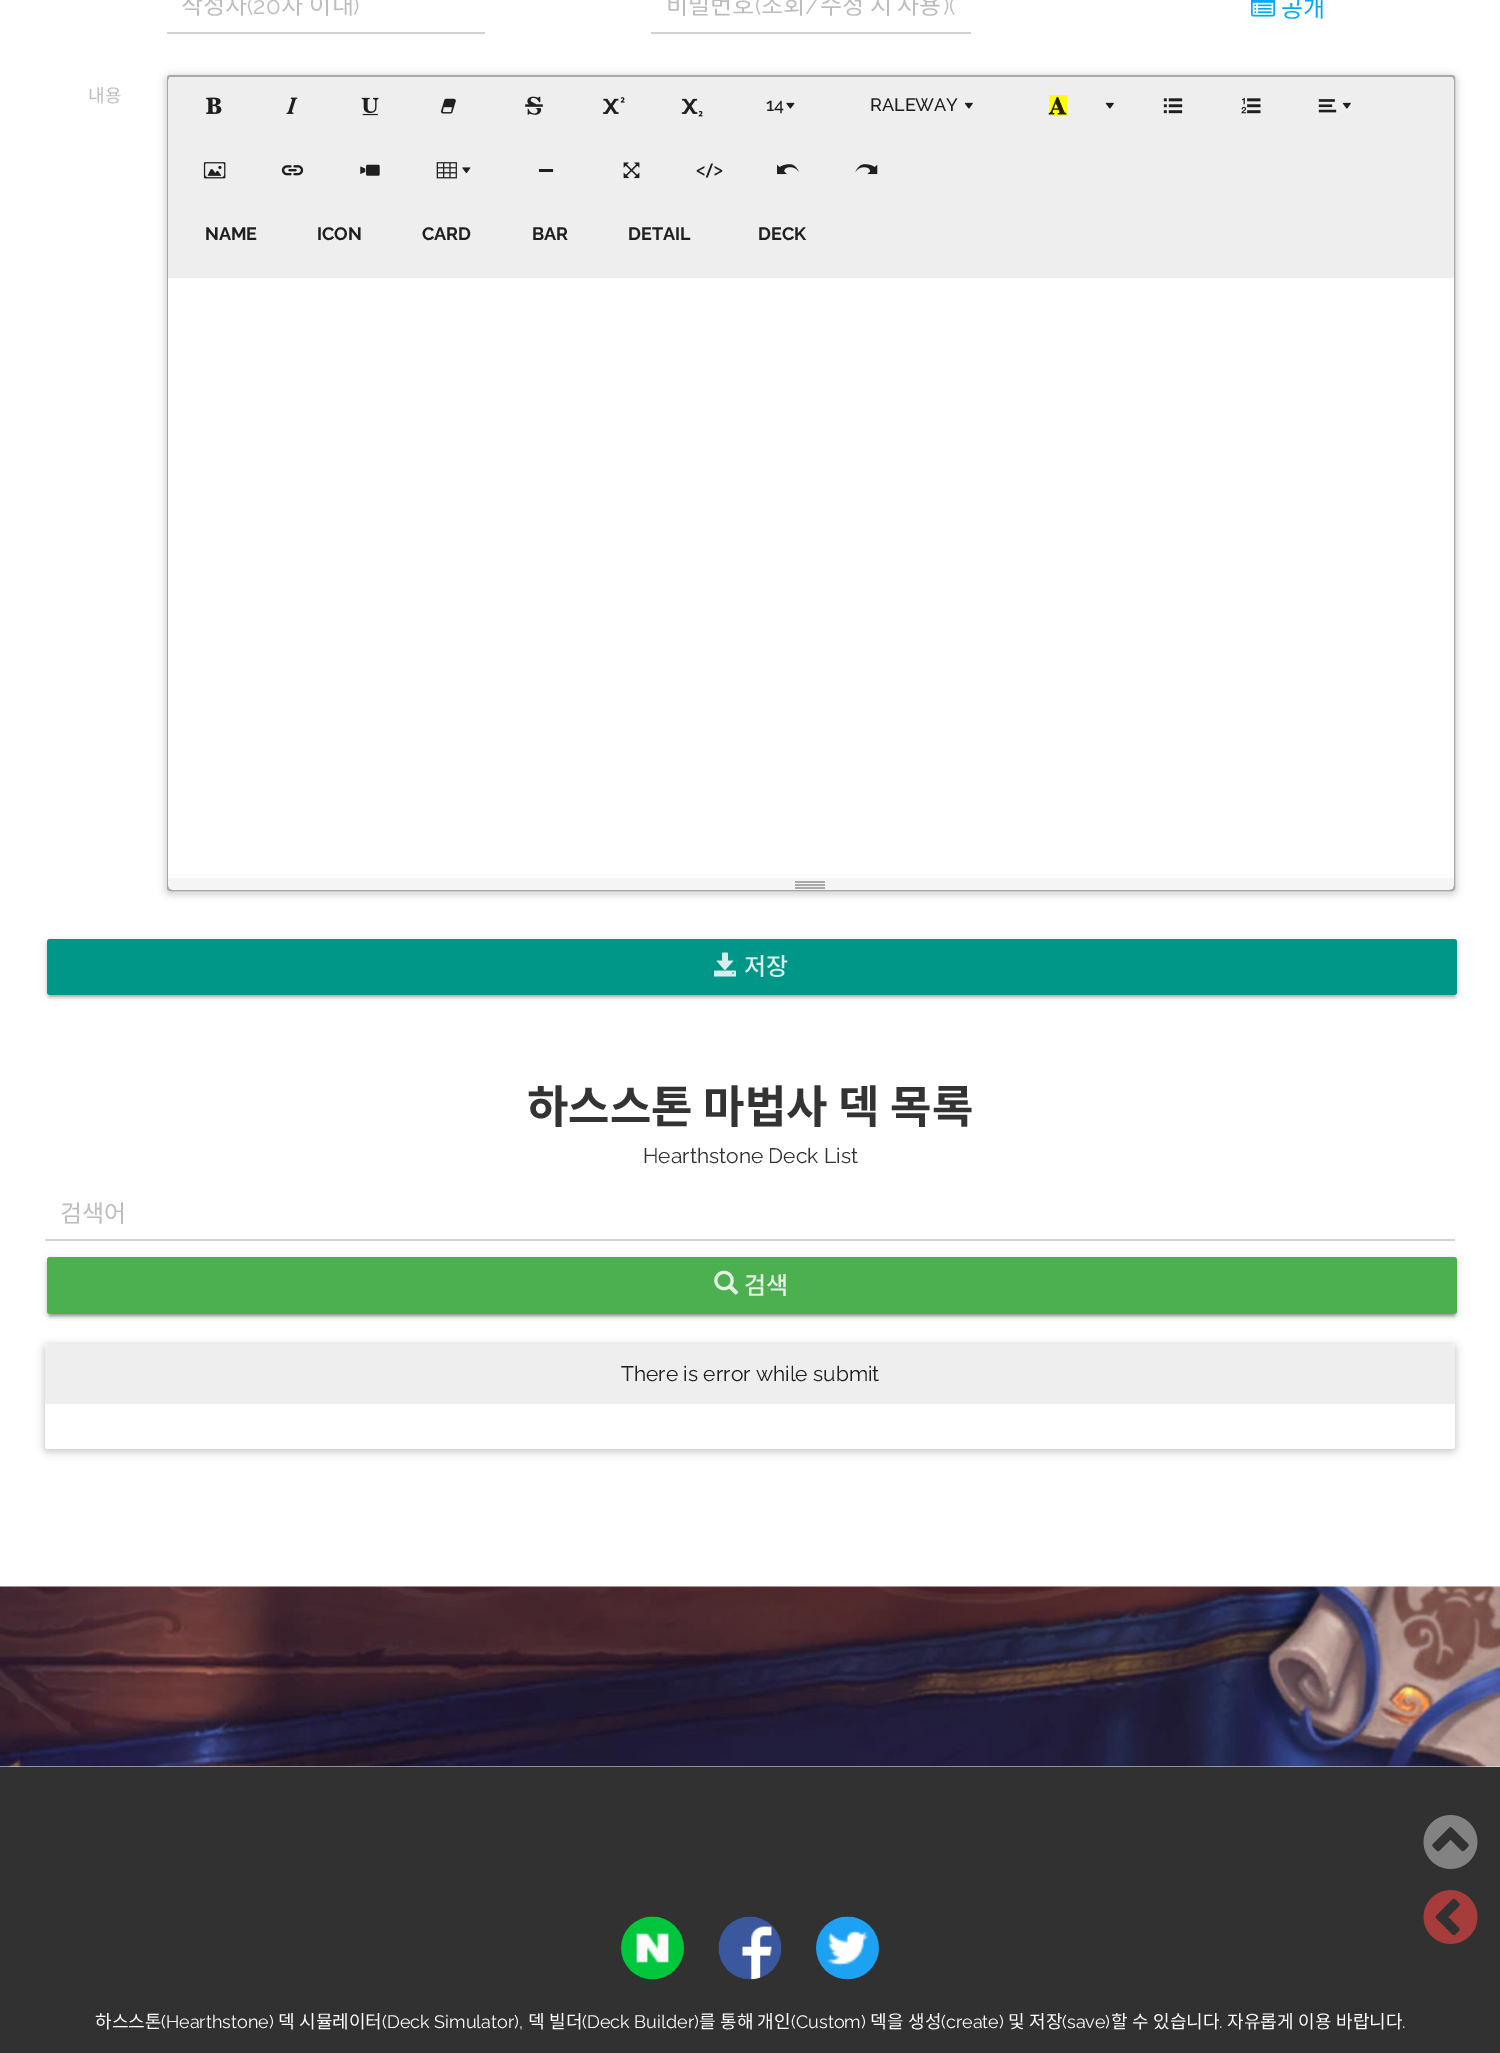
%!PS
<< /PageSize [1500 2053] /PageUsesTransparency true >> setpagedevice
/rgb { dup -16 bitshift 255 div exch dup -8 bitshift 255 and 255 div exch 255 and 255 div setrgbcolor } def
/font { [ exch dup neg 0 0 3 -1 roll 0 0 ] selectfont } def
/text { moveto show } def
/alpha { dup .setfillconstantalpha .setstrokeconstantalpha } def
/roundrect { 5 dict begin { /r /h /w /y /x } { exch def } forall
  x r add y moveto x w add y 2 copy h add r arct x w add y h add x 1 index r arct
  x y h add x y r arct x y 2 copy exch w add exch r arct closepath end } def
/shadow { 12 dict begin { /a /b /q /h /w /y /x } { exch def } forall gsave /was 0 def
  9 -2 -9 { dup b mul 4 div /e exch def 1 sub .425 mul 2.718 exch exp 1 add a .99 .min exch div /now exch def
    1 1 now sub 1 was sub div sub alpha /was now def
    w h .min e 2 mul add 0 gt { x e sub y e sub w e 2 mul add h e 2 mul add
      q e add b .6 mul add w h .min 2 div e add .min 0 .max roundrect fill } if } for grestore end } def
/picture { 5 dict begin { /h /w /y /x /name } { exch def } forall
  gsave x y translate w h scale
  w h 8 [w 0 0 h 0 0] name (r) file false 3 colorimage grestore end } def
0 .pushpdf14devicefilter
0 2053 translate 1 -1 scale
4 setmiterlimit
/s1 { /NotoSansKR-Regular 24 font 16#BDBDBD rgb } def
/s2 { /Raleway-Regular 24 font 16#BDBDBD rgb } def
/s3 { /NotoSansKR-Regular 24 font 16#03A9F4 rgb } def
/s4 { /NotoSansKR-Regular 18 font 16#BDBDBD rgb } def
/s5 { /Raleway-Medium 18 font 16#1F1F1F rgb } def
/s6 { /Raleway-Bold 18 font 16#1F1F1F rgb } def
/s7 { /NotoSansKR-Medium 24 font 16#D6EEEC rgb } def
/s8 { /Raleway-Regular 21 font 16#333333 rgb } def
/s9 { /NotoSansKR-Medium 24 font 16#E2F2E3 rgb } def
/s10 { /Raleway-Regular 21 font 16#1F1F1F rgb } def
/s11 { /NotoSansKR-Regular 18 font 16#FFFFFF rgb } def
/s12 { /Raleway-Regular 18 font 16#FFFFFF rgb } def
16#FFFFFF rgb
0 0 1500 2053 rectfill
16#D2D2D2 rgb
167 32 318 2 rectfill
s1
(작성자) 181 14 text
s2
(\(20) 247 14 text
/NotoSansKR-Regular 24 font
281 14 moveto 1 0 32 (자 이내) widthshow
s2
(\)) 353 14 text
16#D2D2D2 rgb
651 32 320 2 rectfill
s1
(비밀번호) 666 14 text
s2
(\() 755 14 text
s1
(조회) 761 14 text
s2
(/) 805 14 text
s1
(수정 시 사용) 820 14 text
s2
(\)\() 943 14 text
(pic1.raw) 1251 0 24 17 picture
s3
(공개) 1281 17 text
s4
(내용) 88 102 text
16#000000 rgb
167 77 1288 816 3 4.5 0.12 shadow
167 77 1288 816 3 4.5 0.12 shadow
16#FFFFFF rgb
168 76 1286 814 2 roundrect gsave fill grestore
16#A9A9A9 rgb
2 setlinewidth
stroke
16#EEEEEE rgb
173 77 moveto 1449 77 lineto 1452 77 1454 79 1454 82 curveto 1454 278 lineto 168 278 lineto 168 82 lineto 168 79 170 77 173 77 curveto closepath fill
(pic2.raw) 206 97 16 17 picture
(pic3.raw) 286 97 12 17 picture
(pic4.raw) 361 97 18 19 picture
(pic5.raw) 440 98 16 16 picture
(pic6.raw) 525 96 18 19 picture
(pic7.raw) 603 97 22 17 picture
(pic8.raw) 681 98 22 19 picture
s5
(14) 766 111 text
(pic9.raw) 786 102 9 7 picture
(RALEWAY) 870 111 text
(pic10.raw) 964 102 9 7 picture
16#FFFF00 rgb
1049 95 18 21 rectfill
(pic11.raw) 1048 97 19 18 picture
(pic10.raw) 1105 102 9 7 picture
(pic12.raw) 1163 98 20 16 picture
(pic13.raw) 1241 97 20 17 picture
(pic14.raw) 1318 99 19 14 picture
(pic10.raw) 1342 102 9 7 picture
(pic15.raw) 203 162 23 17 picture
(pic16.raw) 281 165 23 11 picture
(pic17.raw) 360 164 20 12 picture
(pic18.raw) 436 162 21 17 picture
(pic19.raw) 462 167 9 7 picture
16#1F1F1F rgb
539 169 14 3 rectfill
(pic20.raw) 623 162 17 17 picture
(pic21.raw) 696 163 27 15 picture
(pic22.raw) 777 164 22 11 picture
(pic23.raw) 855 164 23 11 picture
s6
(NAME) 205 240 text
(ICON) 317 240 text
(CARD) 422 240 text
(BAR) 532 240 text
(DETAIL) 628 240 text
(DECK) 758 240 text
16#FFFFFF rgb
168 278 1286 600 rectfill
16#F5F5F5 rgb
168 878 moveto 1454 878 lineto 1454 884 lineto 1454 887.5 1451.5 890 1448 890 curveto 174 890 lineto 170.5 890 168 887.5 168 884 curveto closepath fill
16#A9A9A9 rgb
795 881 30 2 rectfill
795 884 30 2 rectfill
795 887 30 2 rectfill
16#000000 rgb
47 941 1410 55 3 4 0.12 shadow
50 947 1404 49 0 1 0.2 shadow
47 942 1410 56 3 1.5 0.14 shadow
16#009688 rgb
47 939 1410 56 3 roundrect fill
(pic24.raw) 714 952 22 25 picture
s7
(저장) 744 975 text
/NotoSansKR-Bold 45 font
16#333333 rgb
527 1123 moveto 0.5 0 32 (하스스톤 마법사 덱 목록) widthshow
s8
(Hearthstone Deck List) 643 1163 text
16#D2D2D2 rgb
45 1239 1410 2 rectfill
s1
(검색어) 60 1222 text
16#000000 rgb
47 1259 1410 57 3 4 0.12 shadow
50 1265 1404 51 0 1 0.2 shadow
47 1260 1410 57 3 1.5 0.14 shadow
16#4CAF50 rgb
47 1257 1410 57 3 roundrect fill
(pic25.raw) 714 1270 25 25 picture
s9
(검색) 744 1294 text
16#000000 rgb
45 1346 1410 105 3 4.5 0.12 shadow
45 1346 1410 105 3 4.5 0.12 shadow
16#FFFFFF rgb
45 1344 1410 105 3 roundrect fill
16#EEEEEE rgb
50 1344 moveto 1450 1344 lineto 1453 1344 1455 1346 1455 1349 curveto 1455 1404 lineto 45 1404 lineto 45 1349 lineto 45 1346 47 1344 50 1344 curveto closepath fill
s10
(There is error while submit) 621 1381 text
(pic26.raw) 0 1586 1500 181 picture
16#313131 rgb
0 1767 1500 286 rectfill
(pic27.raw) 1423 1815 55 54 picture
(pic28.raw) 1423 1890 55 54 picture
(pic29.raw) 621 1916 63 64 picture
(pic30.raw) 718 1916 64 64 picture
(pic31.raw) 816 1916 63 64 picture
s11
(하스스톤) 95 2028 text
s12
(\(Hearthstone\)) 161 2028 text
s11
(덱) 278 2028 text
(시뮬레이터) 299 2028 text
s12
(\(Deck Simulator\),) 382 2028 text
s11
(덱) 528 2028 text
(빌더) 549 2028 text
s12
(\(Deck Builder\)) 582 2028 text
s11
(를) 699 2028 text
(통해) 720 2028 text
(개인) 757 2028 text
s12
(\(Custom\)) 791 2028 text
s11
(덱을) 870 2028 text
(생성) 908 2028 text
s12
(\(create\)) 941 2028 text
s11
(및) 1008 2028 text
(저장) 1029 2028 text
s12
(\(save\)) 1062 2028 text
s11
(할) 1111 2028 text
(수) 1132 2028 text
(있습니다) 1153 2028 text
s12
(.) 1219 2028 text
s11
(자유롭게) 1227 2028 text
(이용) 1298 2028 text
(바랍니다) 1336 2028 text
s12
(.) 1402 2028 text
.poppdf14devicefilter showpage
